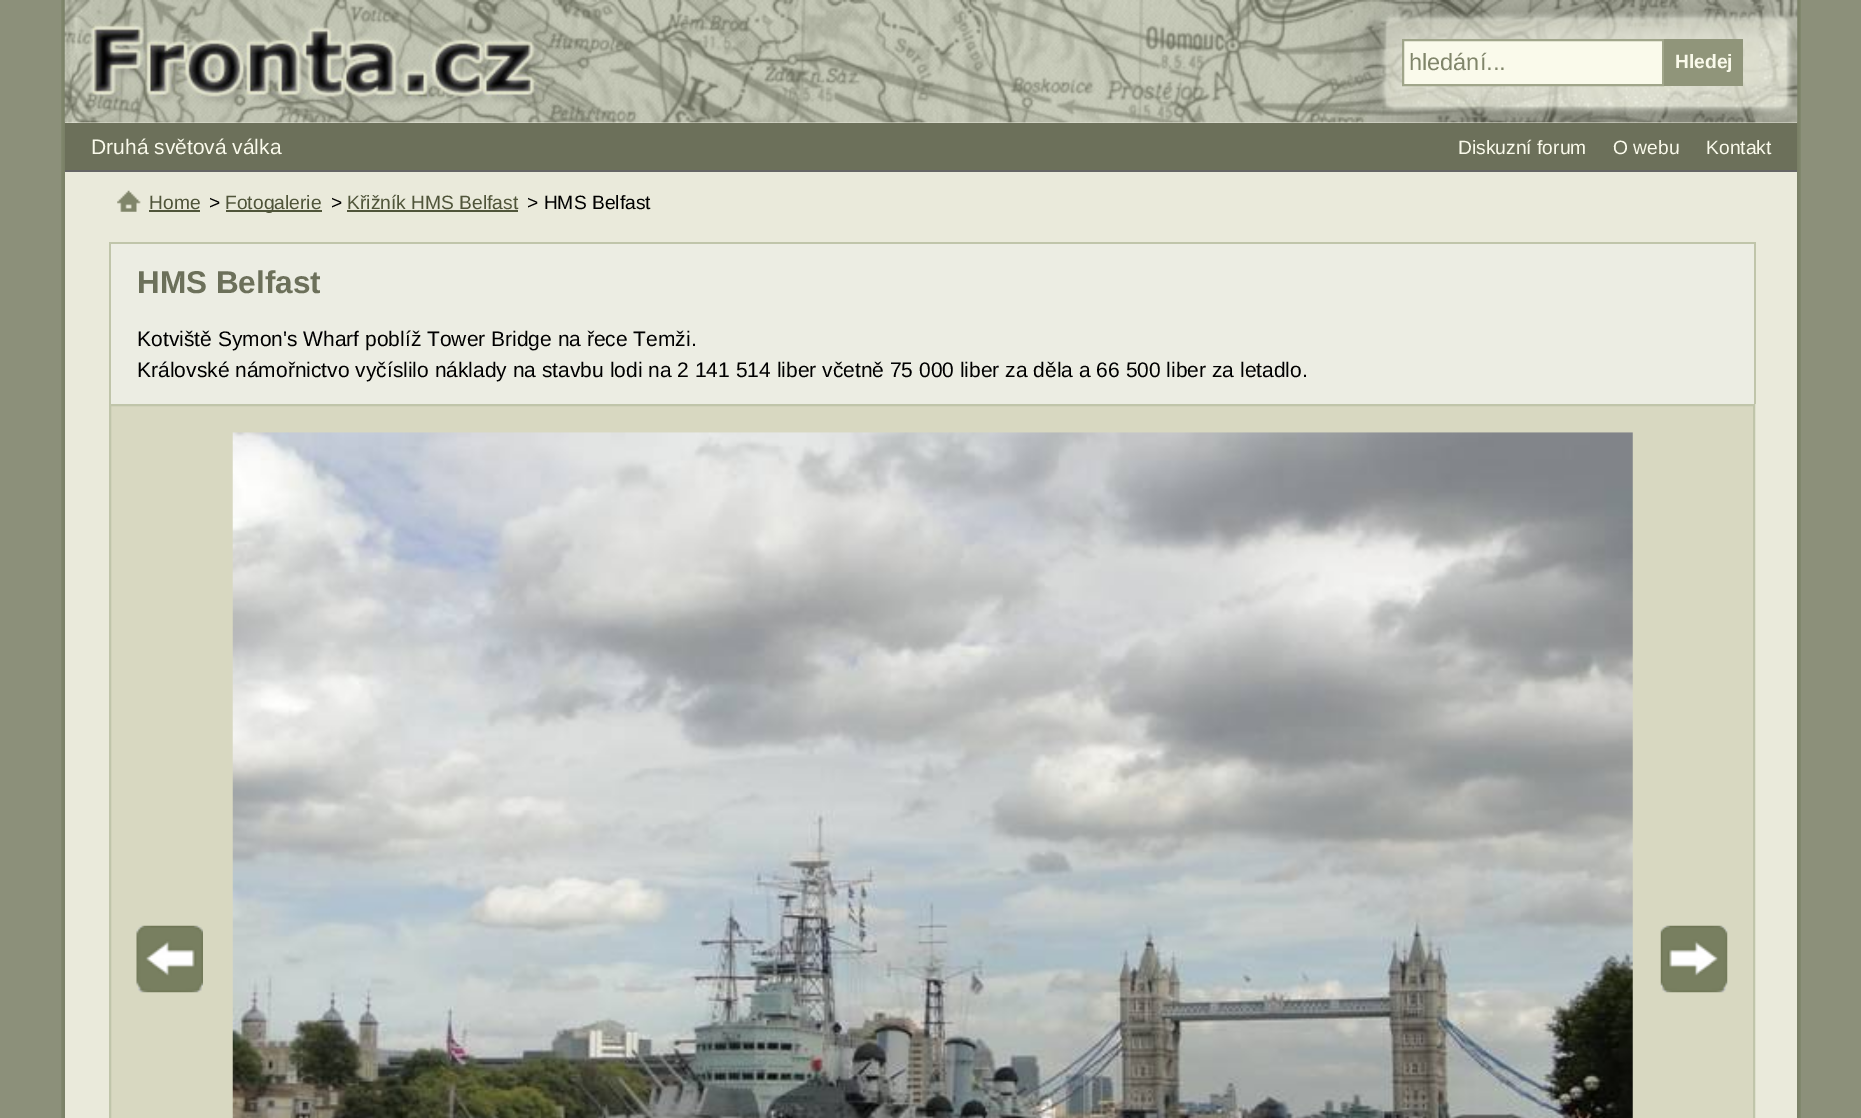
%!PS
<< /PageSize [1861 1118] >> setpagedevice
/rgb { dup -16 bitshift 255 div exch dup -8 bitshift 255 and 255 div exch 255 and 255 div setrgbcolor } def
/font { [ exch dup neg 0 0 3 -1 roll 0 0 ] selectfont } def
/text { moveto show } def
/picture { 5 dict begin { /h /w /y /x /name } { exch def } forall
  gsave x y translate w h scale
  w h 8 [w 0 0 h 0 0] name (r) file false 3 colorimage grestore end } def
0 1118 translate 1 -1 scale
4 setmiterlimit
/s1 { /LiberationSans-Regular 23.5 font 16#80856A rgb } def
/s2 { /LiberationSans-Bold 19.25 font 16#FAFAEB rgb } def
/s3 { /LiberationSans-Regular 21 font 16#FAFAEB rgb } def
/s4 { /LiberationSans-Regular 19.25 font 16#50553A rgb } def
/s5 { /LiberationSans-Regular 19.25 font 16#000000 rgb } def
/s6 { /LiberationSans-Bold 31.5 font 16#6C705A rgb } def
/s7 { /LiberationSans-Regular 21 font 16#000000 rgb } def
/s8 { /LiberationSans-Regular 19.25 font 16#FAFAEB rgb } def
16#8C907A rgb
0 0 1861 1118 rectfill
(pic1.raw) 61 0 1740 1118 picture
16#EAEADB rgb
65 122 1732 996 rectfill
(pic2.raw) 64 0 1734 123 picture
16#FAFAEB rgb
1403 40 moveto 1663 40 lineto 1663 85 lineto 1403 85 lineto closepath gsave fill grestore
16#A0A58A rgb
2 setlinewidth
stroke
s1
(hledání...) 1409 70 text
16#90957A rgb
1664 39 79 47 rectfill
s2
(Hledej) 1675 68 text
16#6C705A rgb
65 123 1732 47 rectfill
16#666666 rgb
65 170 1732 2 rectfill
s3
(Druhá světová válka) 91 154 text
(pic3.raw) 117 190 24 22 picture
s4
(Home) 149 209 text
149 210 51 2 rectfill
s5
(>) 209 209 text
16#50553A rgb
226 210 96 2 rectfill
(Fotogalerie) 225 209 text
s5
(>) 331 209 text
s4
(Křižník HMS Belfast) 347 209 text
347 210 171 2 rectfill
s5
(> HMS Belfast) 527 209 text
16#ECEDE3 rgb
111 244 1643 160 rectfill
16#C0C5AA rgb
109 242 1646 2 rectfill
1754 242 2 162 rectfill
109 242 2 162 rectfill
s6
(HMS Belfast) 137 293 text
s7
(Kotviště Symon's Wharf poblíž Tower Bridge na řece Temži.) 137 346 text
(Královské námořnictvo vyčíslilo náklady na stavbu lodi na 2 141 514 liber včetně 75 000 liber za děla a 66 500 liber za letadlo.) 137 377 text
16#D8D8C1 rgb
110 405 moveto 1754 405 lineto 1754 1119 lineto 110 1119 lineto closepath gsave fill grestore
16#C0C5AA rgb
stroke
(pic4.raw) 136 925 67 68 picture
(pic5.raw) 232 432 1401 686 picture
(pic6.raw) 1660 925 68 68 picture
s8
(Diskuzní forum) 1458 154 text
(O webu) 1613 154 text
(Kontakt) 1706 154 text
showpage
